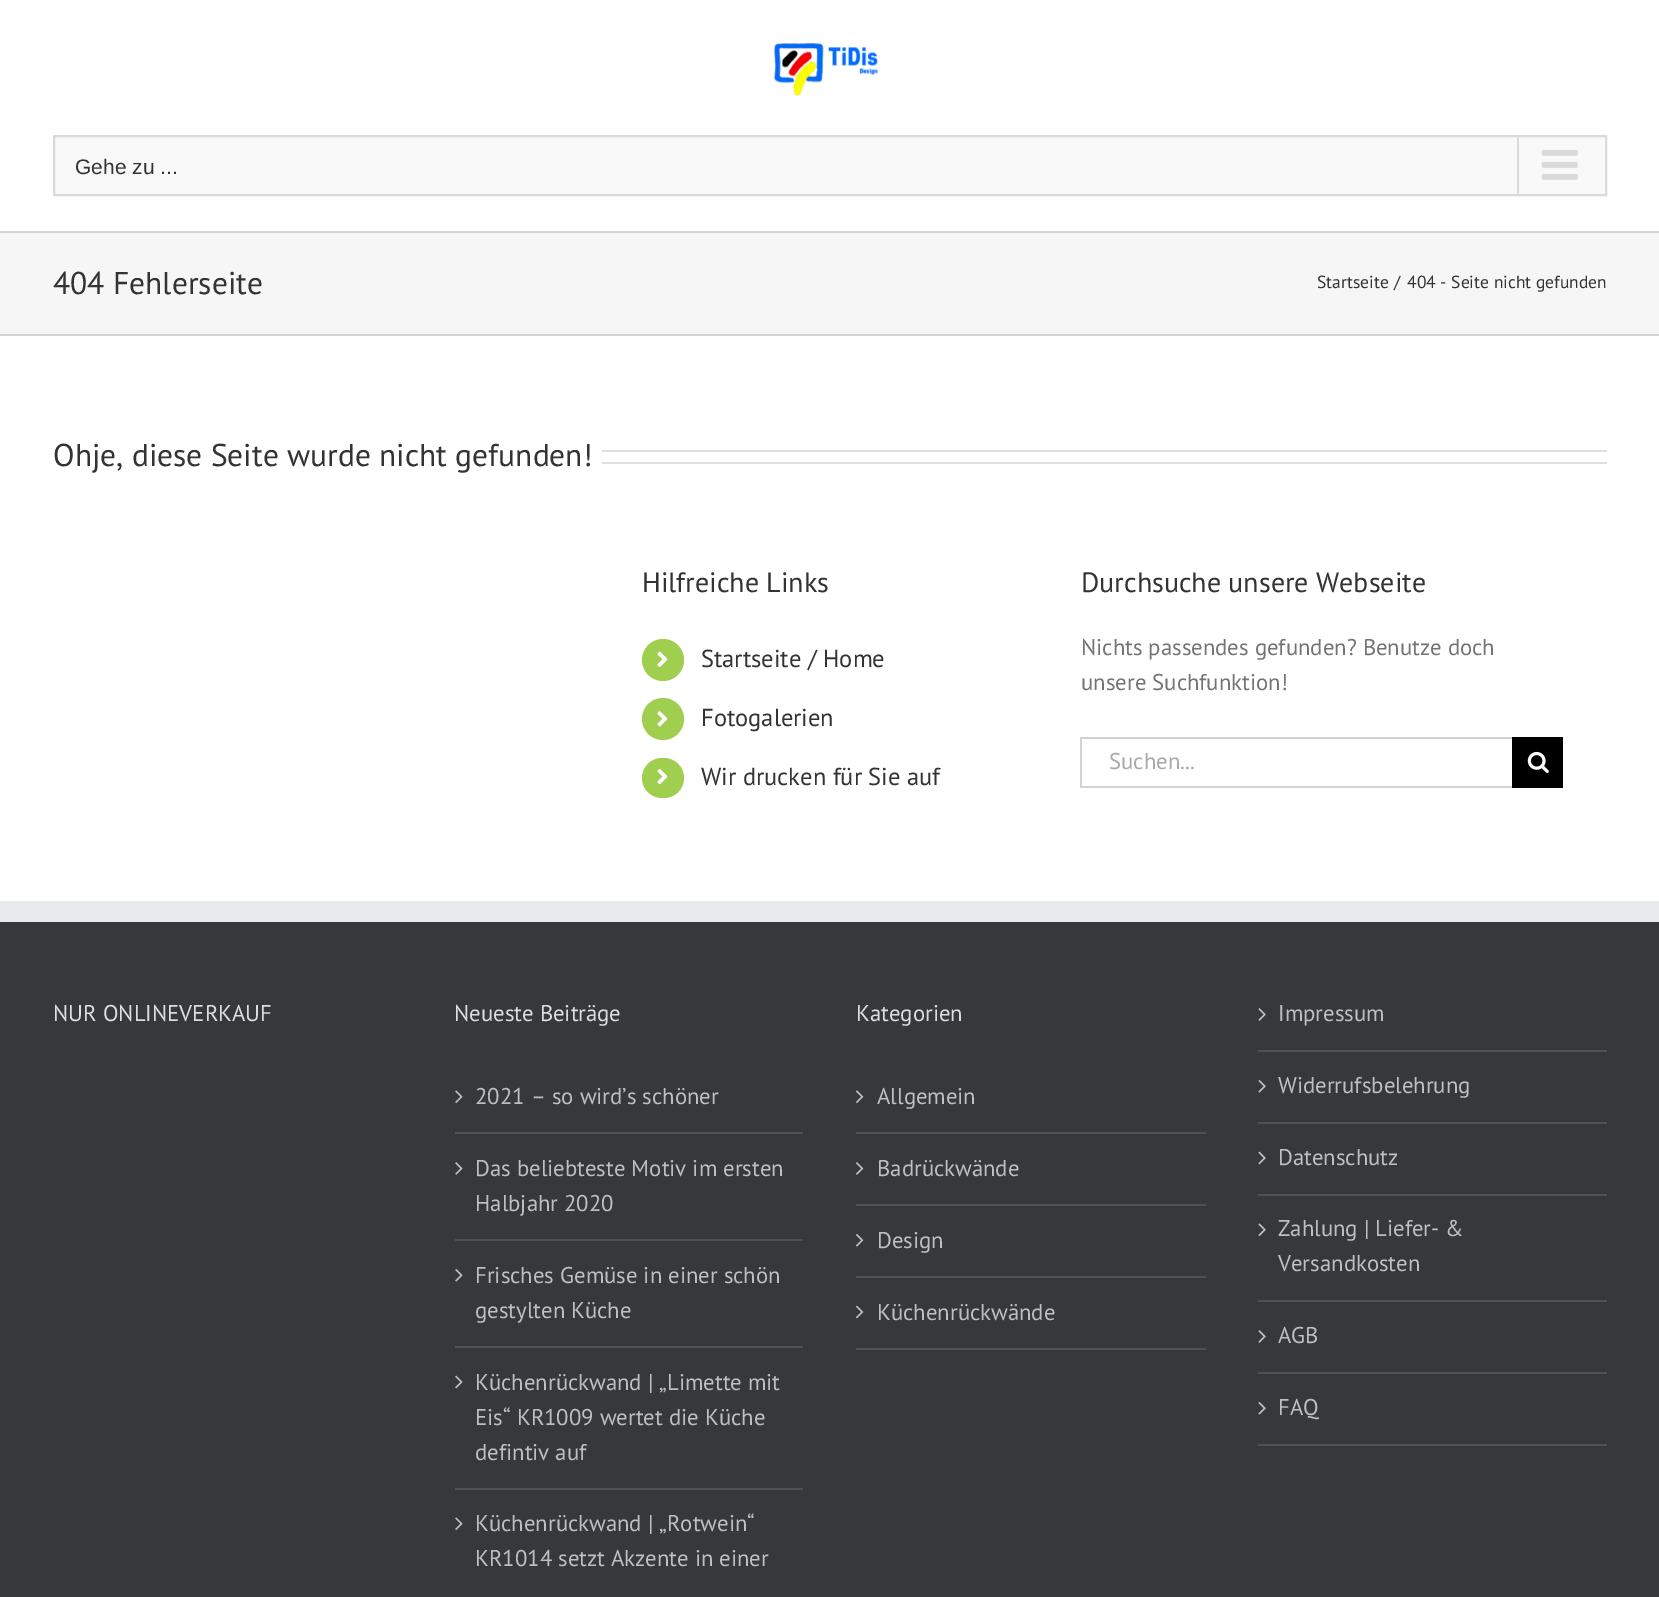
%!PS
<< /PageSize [1659 1597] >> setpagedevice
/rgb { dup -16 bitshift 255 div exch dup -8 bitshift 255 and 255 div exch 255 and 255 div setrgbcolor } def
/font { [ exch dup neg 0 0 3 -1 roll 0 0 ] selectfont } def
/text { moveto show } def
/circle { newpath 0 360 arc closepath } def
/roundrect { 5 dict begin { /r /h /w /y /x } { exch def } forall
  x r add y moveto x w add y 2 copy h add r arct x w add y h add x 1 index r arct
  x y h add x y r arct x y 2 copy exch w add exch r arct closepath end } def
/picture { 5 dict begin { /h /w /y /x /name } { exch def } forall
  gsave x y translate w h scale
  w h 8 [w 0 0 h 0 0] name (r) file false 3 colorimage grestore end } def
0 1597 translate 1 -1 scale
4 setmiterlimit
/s1 { /LiberationSans-Regular 21 font 16#333333 rgb } def
/s2 { /PTSans-Regular 31.5 font 16#333333 rgb } def
/s3 { /PTSans-Regular 17.5 font 16#333333 rgb } def
/s4 { /PTSans-Regular 28 font 16#333333 rgb } def
/s5 { /PTSans-Regular 24.5 font 16#333333 rgb } def
/s6 { /PTSans-Regular 22.75 font 16#747474 rgb } def
/s7 { /PTSans-Regular 22.75 font 16#AAA9A9 rgb } def
/s8 { /PTSans-Regular 22.75 font 16#DDDDDD rgb } def
/s9 { /PTSans-Regular 22.75 font 16#BFBFBF rgb } def
16#FFFFFF rgb
0 0 1659 1597 rectfill
(pic1.raw) 774 42 104 54 picture
16#F9F9F9 rgb
54 136 moveto 1606 136 lineto 1606 195 lineto 54 195 lineto closepath gsave fill grestore
16#DADADA rgb
2 setlinewidth
stroke
s1
(Gehe zu ...) 75 174 text
16#DADADA rgb
1517 137 2 57 rectfill
(pic2.raw) 1541 149 37 31 picture
16#F6F6F6 rgb
0 233 1659 101 rectfill
16#D2D3D4 rgb
0 231 1659 2 rectfill
0 334 1659 2 rectfill
s2
(404 Fehlerseite) 53 294 text
s3
(Startseite) 1317 288 text
(/) 1394 288 text
(404 - Seite nicht gefunden) 1407 288 text
s2
(Ohje, diese Seite wurde nicht gefunden!) 53 466 text
16#E0DEDE rgb
602 450 1005 2 rectfill
602 462 1005 2 rectfill
s4
(Hilfreiche Links) 642 592 text
16#A0CE4E rgb
663 660 21 circle fill
(pic3.raw) 657 651 11 16 picture
s5
(Startseite / Home) 701 667 text
16#A0CE4E rgb
663 719 21 circle fill
(pic4.raw) 657 711 11 16 picture
s5
(Fotogalerien) 701 726 text
16#A0CE4E rgb
642 758 42 40 20 roundrect fill
(pic5.raw) 657 768 11 17 picture
s5
(Wir drucken für Sie auf) 701 785 text
s4
(Durchsuche unsere Webseite) 1081 592 text
s6
(Nichts passendes gefunden? Benutze doch) 1081 655 text
(unsere Suchfunktion!) 1081 690 text
16#D2D2D2 rgb
1080 737 432 2 rectfill
1080 786 432 2 rectfill
1080 737 2 51 rectfill
s7
(Suchen...) 1109 769 text
16#000000 rgb
1512 737 51 51 rectfill
(pic6.raw) 1527 751 22 22 picture
16#363839 rgb
0 922 1659 675 rectfill
16#E9EAEE rgb
0 901 1659 21 rectfill
s8
(NUR ONLINEVERKAUF) 53 1021 text
(Neueste Beiträge) 454 1021 text
16#505152 rgb
455 1132 348 2 rectfill
(pic7.raw) 455 1090 8 13 picture
s9
(2021 – so wird’s schöner) 475 1104 text
16#505152 rgb
455 1239 348 2 rectfill
(pic8.raw) 455 1162 8 13 picture
s9
(Das beliebteste Motiv im ersten) 475 1176 text
(Halbjahr 2020) 475 1211 text
16#505152 rgb
455 1346 348 2 rectfill
(pic9.raw) 455 1269 8 13 picture
s9
(Frisches Gemüse in einer schön) 475 1283 text
(gestylten Küche) 475 1318 text
16#505152 rgb
455 1488 348 2 rectfill
(pic10.raw) 455 1375 8 14 picture
s9
(Küchenrückwand | „Limette mit) 475 1390 text
(Eis“ KR1009 wertet die Küche) 475 1425 text
(defintiv auf) 475 1460 text
(pic7.raw) 455 1517 8 13 picture
(Küchenrückwand | „Rotwein“) 475 1531 text
(KR1014 setzt Akzente in einer) 475 1566 text
s8
(Kategorien) 856 1021 text
16#505152 rgb
856 1132 350 2 rectfill
(pic11.raw) 856 1090 8 13 picture
s9
(Allgemein) 877 1104 text
16#505152 rgb
856 1204 350 2 rectfill
(pic12.raw) 856 1162 8 13 picture
s9
(Badrückwände) 877 1176 text
16#505152 rgb
856 1276 350 2 rectfill
(pic13.raw) 856 1234 8 13 picture
s9
(Design) 877 1248 text
16#505152 rgb
856 1348 350 2 rectfill
(pic14.raw) 856 1305 8 14 picture
s9
(Küchenrückwände) 877 1320 text
16#505152 rgb
1258 1050 349 2 rectfill
(pic15.raw) 1258 1008 8 13 picture
s9
(Impressum) 1278 1021 text
16#505152 rgb
1258 1122 349 2 rectfill
(pic16.raw) 1258 1080 8 13 picture
s9
(Widerrufsbelehrung) 1278 1093 text
16#505152 rgb
1258 1194 349 2 rectfill
(pic17.raw) 1258 1151 8 14 picture
s9
(Datenschutz) 1278 1165 text
16#505152 rgb
1258 1300 349 2 rectfill
(pic18.raw) 1258 1223 8 13 picture
s9
(Zahlung | Liefer- &) 1278 1236 text
(Versandkosten) 1278 1271 text
16#505152 rgb
1258 1372 349 2 rectfill
(pic15.raw) 1258 1330 8 13 picture
s9
(AGB) 1278 1343 text
16#505152 rgb
1258 1444 349 2 rectfill
(pic16.raw) 1258 1402 8 13 picture
s9
(FAQ) 1278 1415 text
showpage
